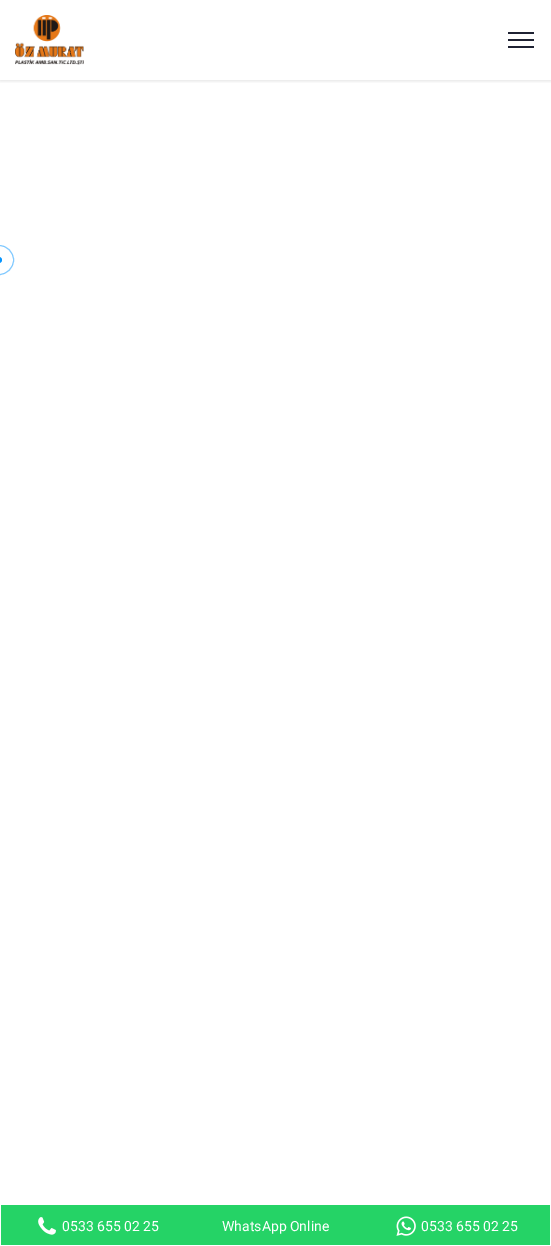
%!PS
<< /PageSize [551 1246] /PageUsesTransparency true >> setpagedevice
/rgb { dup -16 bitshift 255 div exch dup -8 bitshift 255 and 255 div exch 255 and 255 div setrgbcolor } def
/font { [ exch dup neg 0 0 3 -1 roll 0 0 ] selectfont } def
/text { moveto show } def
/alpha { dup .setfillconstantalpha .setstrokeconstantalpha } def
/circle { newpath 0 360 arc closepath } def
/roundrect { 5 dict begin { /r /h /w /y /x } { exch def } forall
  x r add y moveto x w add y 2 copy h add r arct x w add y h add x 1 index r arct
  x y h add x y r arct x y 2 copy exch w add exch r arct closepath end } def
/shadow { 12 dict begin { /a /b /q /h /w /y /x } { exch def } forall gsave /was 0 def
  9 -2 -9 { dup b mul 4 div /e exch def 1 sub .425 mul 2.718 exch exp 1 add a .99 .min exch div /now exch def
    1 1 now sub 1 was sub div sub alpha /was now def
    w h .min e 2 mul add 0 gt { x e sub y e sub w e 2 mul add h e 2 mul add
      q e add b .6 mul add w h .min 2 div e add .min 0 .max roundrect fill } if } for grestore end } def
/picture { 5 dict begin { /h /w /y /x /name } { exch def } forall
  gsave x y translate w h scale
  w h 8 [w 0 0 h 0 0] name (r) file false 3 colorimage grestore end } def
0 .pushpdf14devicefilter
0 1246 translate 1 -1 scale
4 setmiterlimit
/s1 { /Roboto-Regular 14 font 16#FFFFFF rgb } def
16#FFFFFF rgb
0 0 551 1246 rectfill
gsave
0 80 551 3 rectclip
16#000000 rgb
0 0 551 80 0 2.5 0.15 shadow
grestore
(pic1.raw) 15 15 69 50 picture
16#1F2233 rgb
508 32 26 2 rectfill
508 39 26 2 rectfill
508 46 26 2 rectfill
16#83CAFF rgb
-1 260 14.5 circle stroke
16#0795FE rgb
-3 257 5 6 3 roundrect fill
16#25D366 rgb
1 1205 549 40 rectfill
(pic2.raw) 38 1217 18 18 picture
s1
(0533 655 02 25) 62 1231 text
(WhatsApp Online) 222 1231 text
(pic3.raw) 396 1216 20 20 picture
(0533 655 02 25) 421 1231 text
.poppdf14devicefilter showpage
